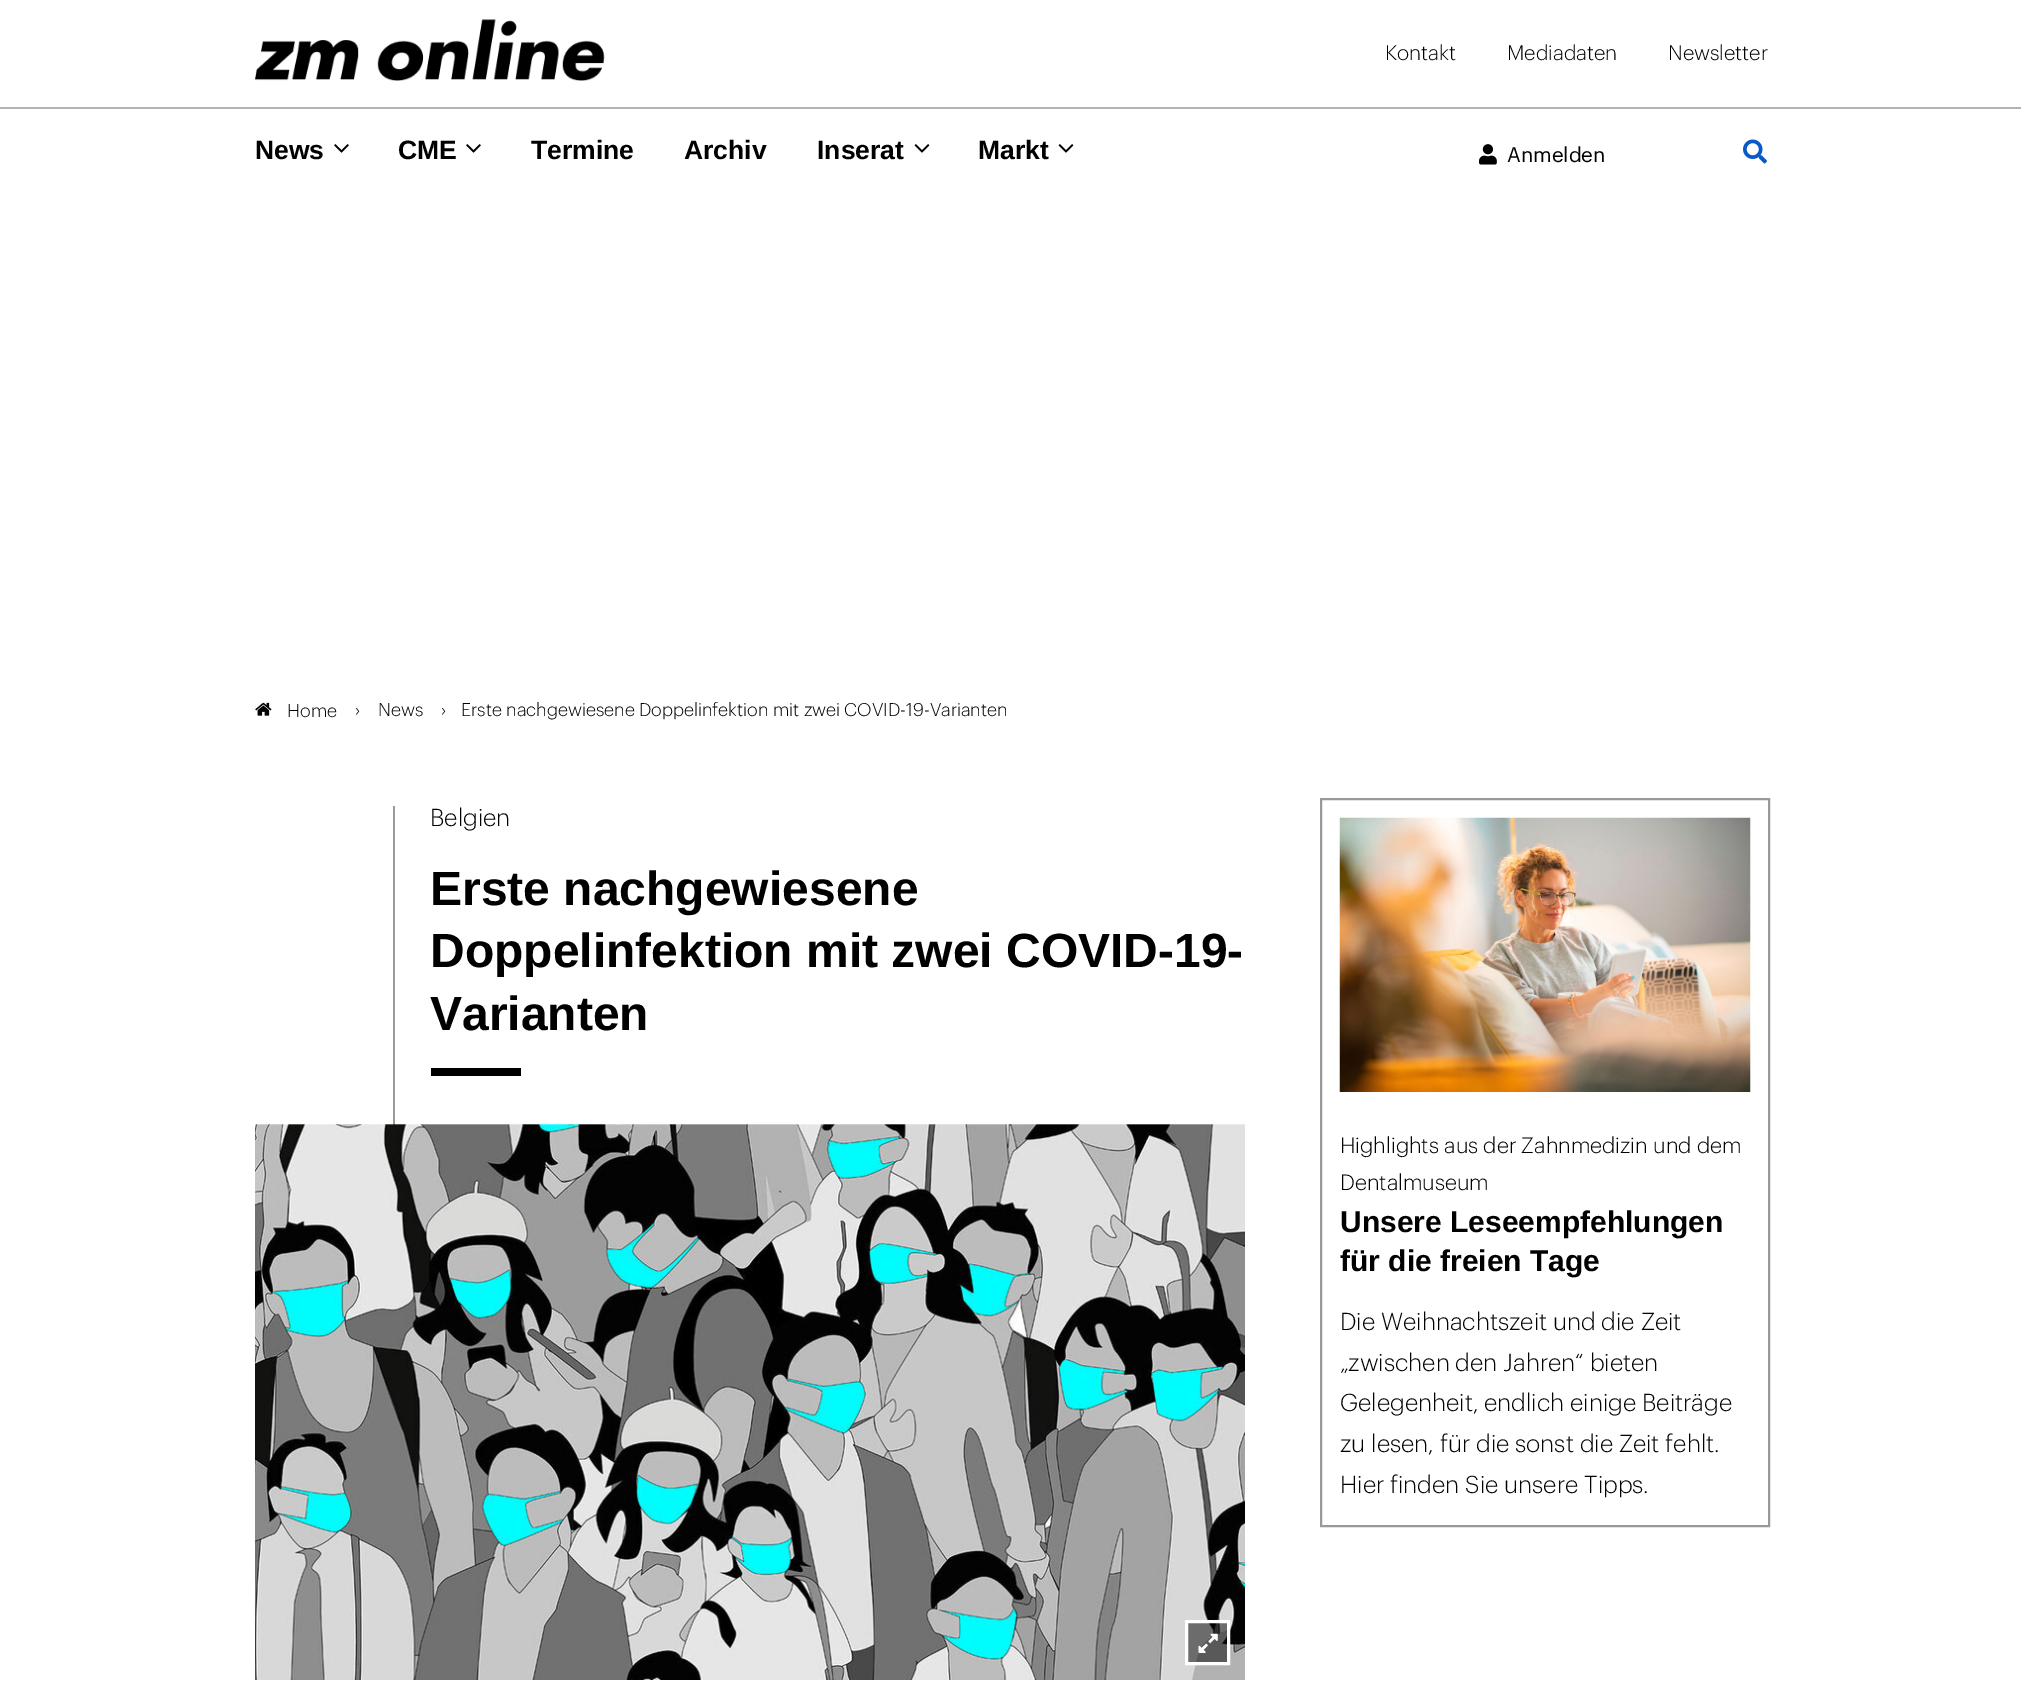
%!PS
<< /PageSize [2021 1707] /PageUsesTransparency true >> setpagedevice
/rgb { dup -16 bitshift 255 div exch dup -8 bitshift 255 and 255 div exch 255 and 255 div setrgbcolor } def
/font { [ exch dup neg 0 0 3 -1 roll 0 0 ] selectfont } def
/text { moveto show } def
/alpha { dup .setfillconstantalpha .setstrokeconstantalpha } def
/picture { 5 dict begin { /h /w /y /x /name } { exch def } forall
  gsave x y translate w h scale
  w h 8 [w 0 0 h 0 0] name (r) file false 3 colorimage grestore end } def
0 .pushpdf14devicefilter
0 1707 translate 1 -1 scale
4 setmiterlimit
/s1 { /Graphik-Light 20.5 font 16#000000 rgb } def
/s2 { /LiberationSans-Bold 26.5 font 16#000000 rgb } def
/s3 { /Graphik-Regular 20.5 font 16#000000 rgb } def
/s4 { /Graphik-Light 18 font 16#000000 rgb } def
/s5 { /Graphik-Light 24 font 16#000000 rgb } def
/s6 { /LiberationSans-Bold 48 font 16#000000 rgb } def
/s7 { /Graphik-Light 21.6 font 16#000000 rgb } def
/s8 { /LiberationSans-Bold 30 font 16#000000 rgb } def
16#FFFFFF rgb
0 0 2021 1707 rectfill
16#B3B3B3 rgb
0 107 2021 2 rectfill
(pic1.raw) 255 19 350 62 picture
s1
(Kontakt) 1385 60 text
(Mediadaten) 1507 60 text
(Newsletter) 1668 60 text
s2
(News) 255 159 text
(pic2.raw) 334 144 15 9 picture
(CME) 398 159 text
(pic2.raw) 466 144 15 9 picture
(Termine) 531 159 text
(Archiv) 684 159 text
(Inserat) 817 159 text
(pic3.raw) 914 144 16 9 picture
(Markt) 978 159 text
(pic3.raw) 1058 144 16 9 picture
(pic4.raw) 1479 144 18 21 picture
s3
(Anmelden) 1507 162 text
(pic5.raw) 1743 139 24 25 picture
(pic6.raw) 255 702 17 14 picture
s4
(Home) 287 717 text
(›) 355 716 text
(News) 378 716 text
(›) 441 716 text
(Erste nachgewiesene Doppelinfektion mit zwei COVID-19-Varianten) 461 716 text
16#999999 rgb
393 806 2 319 rectfill
s5
(Belgien) 430 826 text
s6
(Erste nachgewiesene) 430 905 text
(Doppelinfektion mit zwei COVID-19-) 430 967 text
(Varianten) 430 1030 text
431 1068 90 8 rectfill
(pic7.raw) 255 1124 990 556 picture
0.5 alpha
1186.5 1621.5 moveto 1228.5 1621.5 lineto 1228.5 1663.5 lineto 1186.5 1663.5 lineto closepath fill
1 alpha
16#FFFFFF rgb
3 setlinewidth
1186.5 1621.5 moveto 1228.5 1621.5 lineto 1228.5 1663.5 lineto 1186.5 1663.5 lineto closepath stroke
(pic8.raw) 1198 1633 20 20 picture
16#999999 rgb
2 setlinewidth
1321 799 448 727 rectstroke
(pic9.raw) 1339 817 412 275 picture
s7
(Highlights aus der Zahnmedizin und dem) 1340 1153 text
(Dentalmuseum) 1340 1190 text
s8
(Unsere Leseempfehlungen) 1340 1232 text
(für die freien Tage) 1340 1271 text
s5
(Die Weihnachtszeit und die Zeit) 1340 1330 text
(„zwischen den Jahren“ bieten) 1340 1371 text
(Gelegenheit, endlich einige Beiträge) 1340 1411 text
(zu lesen, für die sonst die Zeit fehlt.) 1340 1452 text
(Hier finden Sie unsere Tipps.) 1340 1493 text
.poppdf14devicefilter showpage
